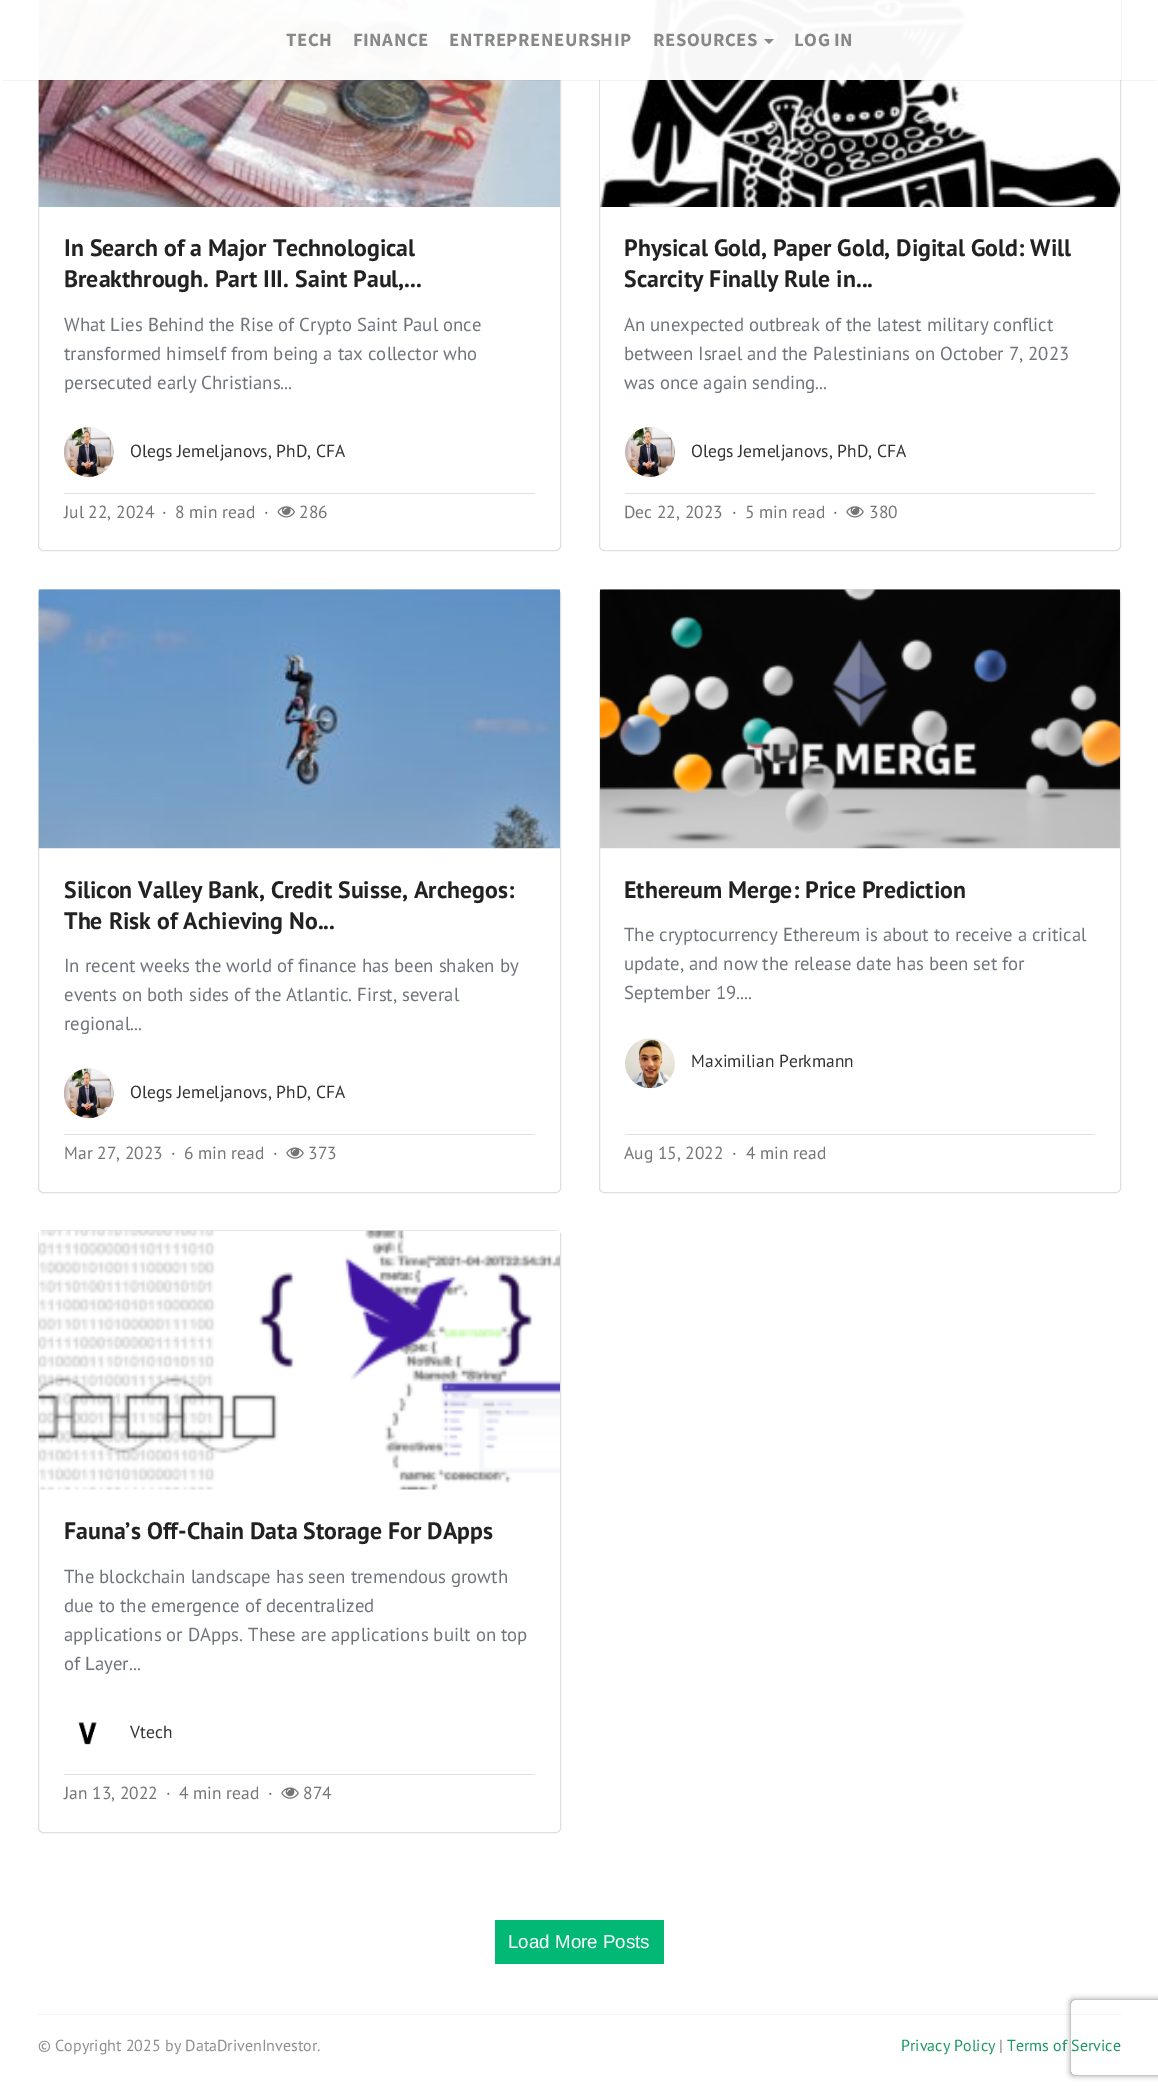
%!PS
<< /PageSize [1158 2092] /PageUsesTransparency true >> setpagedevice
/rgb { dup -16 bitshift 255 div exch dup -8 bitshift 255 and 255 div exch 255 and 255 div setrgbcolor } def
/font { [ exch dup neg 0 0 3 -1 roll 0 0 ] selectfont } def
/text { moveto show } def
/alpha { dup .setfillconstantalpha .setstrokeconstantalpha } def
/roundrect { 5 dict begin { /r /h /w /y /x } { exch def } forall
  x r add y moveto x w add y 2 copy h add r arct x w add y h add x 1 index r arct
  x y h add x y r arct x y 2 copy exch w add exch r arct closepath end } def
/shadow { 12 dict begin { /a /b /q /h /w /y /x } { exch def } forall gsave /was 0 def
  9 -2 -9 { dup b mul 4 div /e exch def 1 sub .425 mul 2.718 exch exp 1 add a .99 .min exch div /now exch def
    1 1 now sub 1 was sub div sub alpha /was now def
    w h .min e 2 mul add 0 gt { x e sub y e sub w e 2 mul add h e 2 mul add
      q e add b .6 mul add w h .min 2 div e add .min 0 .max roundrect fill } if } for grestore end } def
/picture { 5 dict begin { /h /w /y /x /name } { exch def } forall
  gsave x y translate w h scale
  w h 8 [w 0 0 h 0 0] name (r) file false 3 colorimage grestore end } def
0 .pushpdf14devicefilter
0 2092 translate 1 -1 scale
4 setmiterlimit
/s1 { /PTSans-Bold 23.8 font 16#222222 rgb } def
/s2 { /PTSans-Regular 18.75 font 16#6F737C rgb } def
/s3 { /PTSans-Regular 17.5 font 16#333333 rgb } def
/s4 { /PTSans-Regular 17.5 font 16#757575 rgb } def
/s5 { /PTSans-Regular 17.5 font 16#5F636D rgb } def
/s6 { /LiberationSans-Regular 18.75 font 16#FFFFFF rgb } def
/s7 { /PTSans-Regular 16 font 16#8F8F8F rgb } def
/s8 { /PTSans-Regular 16 font 16#1C9963 rgb } def
16#FFFFFF rgb
0 0 1158 2092 rectfill
16#DFDFDF rgb
38.5 -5.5 522 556 4.5 roundrect stroke
(pic1.raw) 38 0 522 207 picture
599.5 -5.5 521 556 4.5 roundrect stroke
(pic4.raw) 600 0 520 207 picture
gsave
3 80 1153 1 rectclip
16#000000 rgb
3 -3 1153 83 0 1 0.15 shadow
grestore
0.97 alpha
16#FFFFFF rgb
38 0 1083 80 rectfill
/SourceSansPro-Bold 18.75 font
1 alpha
16#888888 rgb
286 46 moveto 0.5 0 (TECH) ashow
353 46 moveto 0.5 0 (FINANCE) ashow
449 46 moveto 0.5 0 (ENTREPRENEURSHIP) ashow
653 46 moveto 0.5 0 (RESOURCES) ashow
764 39 moveto 774 39 lineto 769 44 lineto closepath fill
794 46 moveto 0.5 0 (LOG IN) ashow
s1
(In Search of a Major Technological) 64 256 text
(Breakthrough. Part III. Saint Paul,...) 64 287 text
s2
(What Lies Behind the Rise of Crypto Saint Paul once) 64 331 text
(transformed himself from being a tax collector who) 64 360 text
(persecuted early Christians...) 64 389 text
(pic2.raw) 64 427 50 50 picture
s3
(Olegs Jemeljanovs, PhD, CFA) 130 457 text
16#DFDFDF rgb
64 493 471 1 rectfill
s4
(Jul 22, 2024) 64 518 text
s5
(·) 162 518 text
s4
(8 min read) 175 518 text
s5
(·) 264 518 text
(pic3.raw) 277 506 18 12 picture
s4
(286) 299 518 text
s1
(Physical Gold, Paper Gold, Digital Gold: Will) 624 256 text
(Scarcity Finally Rule in...) 624 287 text
s2
(An unexpected outbreak of the latest military conflict) 624 331 text
(between Israel and the Palestinians on October 7, 2023) 624 360 text
(was once again sending...) 624 389 text
(pic5.raw) 625 427 50 50 picture
s3
(Olegs Jemeljanovs, PhD, CFA) 691 457 text
16#DFDFDF rgb
625 493 470 1 rectfill
s4
(Dec 22, 2023) 624 518 text
s5
(·) 732 518 text
s4
(5 min read) 745 518 text
s5
(·) 833 518 text
(pic6.raw) 846 506 18 12 picture
s4
(380) 869 518 text
16#DFDFDF rgb
38.5 589.5 522 603 4.5 roundrect stroke
(pic7.raw) 38 589 522 260 picture
s1
(Silicon Valley Bank, Credit Suisse, Archegos:) 64 898 text
(The Risk of Achieving No...) 64 929 text
s2
(In recent weeks the world of finance has been shaken by) 64 972 text
(events on both sides of the Atlantic. First, several) 64 1001 text
(regional...) 64 1030 text
(pic8.raw) 63 1068 51 51 picture
s3
(Olegs Jemeljanovs, PhD, CFA) 130 1098 text
16#DFDFDF rgb
64 1134 471 1 rectfill
s4
(Mar 27, 2023) 64 1159 text
s5
(·) 171 1159 text
s4
(6 min read) 184 1159 text
s5
(·) 273 1159 text
(pic9.raw) 286 1147 18 12 picture
s4
(373) 308 1159 text
16#DFDFDF rgb
599.5 589.5 521 603 4.5 roundrect stroke
(pic10.raw) 600 589 520 260 picture
s1
(Ethereum Merge: Price Prediction) 624 898 text
s2
(The cryptocurrency Ethereum is about to receive a critical) 624 941 text
(update, and now the release date has been set for) 624 970 text
(September 19....) 624 999 text
(pic11.raw) 625 1038 50 51 picture
s3
(Maximilian Perkmann) 691 1067 text
16#DFDFDF rgb
625 1134 470 1 rectfill
s4
(Aug 15, 2022) 624 1159 text
s5
(·) 732 1159 text
s4
(4 min read) 746 1159 text
16#DFDFDF rgb
38.5 1230.5 522 602 4.5 roundrect stroke
(pic12.raw) 38 1230 522 260 picture
s1
(Fauna’s Off-Chain Data Storage For DApps) 64 1539 text
s2
(The blockchain landscape has seen tremendous growth) 64 1583 text
(due to the emergence of decentralized) 64 1612 text
(applications or DApps. These are applications built on top) 64 1641 text
(of Layer...) 64 1670 text
(pic13.raw) 78 1722 19 23 picture
s3
(Vtech) 130 1738 text
16#DFDFDF rgb
64 1774 471 1 rectfill
s4
(Jan 13, 2022) 64 1799 text
s5
(·) 166 1799 text
s4
(4 min read) 179 1799 text
s5
(·) 268 1799 text
(pic9.raw) 281 1787 18 12 picture
s4
(874) 303 1799 text
16#02B875 rgb
495 1920 169 44 rectfill
s6
(Load More Posts) 508 1948 text
16#F2F2F2 rgb
38 2014 1083 1 rectfill
gsave
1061 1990 moveto 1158 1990 lineto 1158 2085 lineto 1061 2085 lineto closepath 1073.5 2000 moveto 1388.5 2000 lineto 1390 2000 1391 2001 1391 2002.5 curveto 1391 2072.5 lineto 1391 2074 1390 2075 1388.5 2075 curveto 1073.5 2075 lineto 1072 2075 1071 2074 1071 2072.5 curveto 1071 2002.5 lineto 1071 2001 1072 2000 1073.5 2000 curveto closepath eoclip newpath
16#808080 rgb
1071 2000 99 75 2.5 3 1 shadow
grestore
s7
(© Copyright 2025 by DataDrivenInvestor.) 38 2051 text
s8
(Privacy Policy) 901 2051 text
s7
(|) 999 2051 text
s8
(Terms of Service) 1007 2051 text
.poppdf14devicefilter showpage
